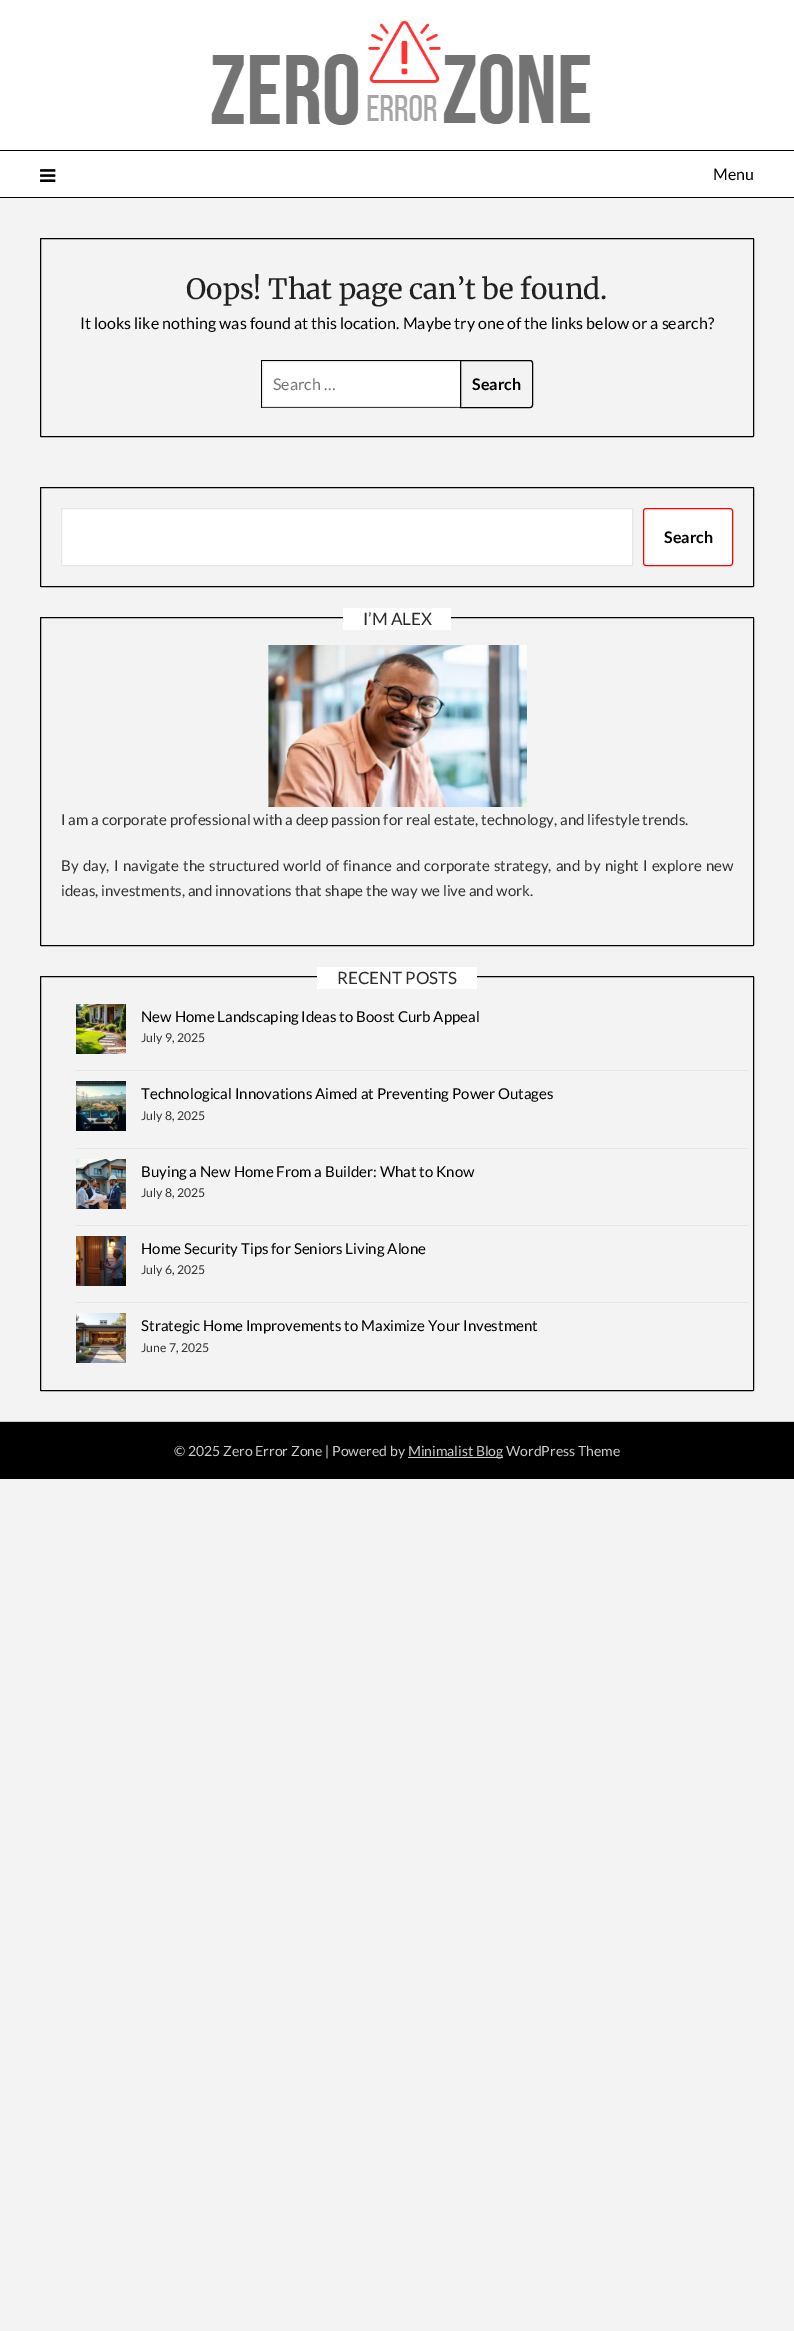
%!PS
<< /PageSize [794 2331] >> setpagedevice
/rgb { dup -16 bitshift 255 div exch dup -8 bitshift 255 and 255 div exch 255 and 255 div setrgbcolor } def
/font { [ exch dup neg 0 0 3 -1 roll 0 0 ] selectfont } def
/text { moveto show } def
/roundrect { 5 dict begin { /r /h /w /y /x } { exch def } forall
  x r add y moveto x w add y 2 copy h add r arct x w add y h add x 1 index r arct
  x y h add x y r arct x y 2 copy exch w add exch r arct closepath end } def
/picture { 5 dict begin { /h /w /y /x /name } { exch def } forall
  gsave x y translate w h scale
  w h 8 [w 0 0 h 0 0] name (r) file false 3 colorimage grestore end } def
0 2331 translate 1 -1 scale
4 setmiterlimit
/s1 { /Lato-Regular 16 font 16#000000 rgb } def
/s2 { /Merriweather-Regular 28 font 16#222222 rgb } def
/s3 { /Lato-Regular 16 font 16#757575 rgb } def
/s4 { /Lato-Bold 16 font 16#000000 rgb } def
/s5 { /Lato-Regular 17 font 16#2B2B2B rgb } def
/s6 { /Lato-Regular 15 font 16#333333 rgb } def
/s7 { /Lato-Regular 15 font 16#000000 rgb } def
/s8 { /Lato-Regular 12.25 font 16#333333 rgb } def
/s9 { /Lato-Regular 14 font 16#CCCCCC rgb } def
16#F3F3F3 rgb
0 0 794 2331 rectfill
16#FFFFFF rgb
0 0 794 197 rectfill
(pic1.raw) 211 20 380 105 picture
16#000000 rgb
0 150 794 1 rectfill
0 197 794 1 rectfill
(pic2.raw) 40 169 16 13 picture
s1
(Menu) 713 180 text
40.5 238.5 713 198 0.5 roundrect stroke
s2
(Oops! That page can’t be found.) 186 299 text
s1
(It looks like nothing was found at this location. Maybe try one of the links below or a search?) 80 329 text
261 360 201 1 rectfill
261 407 201 1 rectfill
261 360 1 48 rectfill
16#FFFFFF rgb
263 362 197 44 rectfill
16#E5E6E9 rgb
262.5 361.5 199 45 rectstroke
s3
(Search …) 273 390 text
16#000000 rgb
460.5 360.5 moveto 530 360.5 lineto 531.5 360.5 532.5 361.5 532.5 363 curveto 532.5 405 lineto 532.5 406.5 531.5 407.5 530 407.5 curveto 460.5 407.5 lineto closepath stroke
s4
(Search) 472 390 text
40.5 487.5 713 99 0.5 roundrect stroke
16#FFFFFF rgb
61.5 508.5 moveto 632.5 508.5 lineto 632.5 565.5 lineto 61.5 565.5 lineto closepath gsave fill grestore
16#E5E6E9 rgb
stroke
16#FFFFFF rgb
643.5 508.5 89 57 2.5 roundrect gsave fill grestore
16#FF0000 rgb
stroke
s4
(Search) 664 543 text
40.5 617.5 713 328 0.5 roundrect stroke
16#FFFFFF rgb
343 608 108 22 rectfill
s5
(I’M ALEX) 363 625 text
(pic3.raw) 268 645 259 162 picture
s6
(I am a corporate professional with a deep passion for real estate, technology, and lifestyle trends.) 61 825 text
61 871 moveto 1.4 0 32 (By day, I navigate the structured world of finance and corporate strategy, and by night I explore new) widthshow
(ideas, investments, and innovations that shape the way we live and work.) 61 896 text
16#000000 rgb
40.5 976.5 713 414 0.5 roundrect stroke
16#FFFFFF rgb
317 967 160 22 rectfill
s5
(RECENT POSTS) 337 984 text
16#E6E6E6 rgb
76 1070 672 1 rectfill
(pic4.raw) 76 1004 50 50 picture
s7
(New Home Landscaping Ideas to Boost Curb Appeal) 141 1022 text
s8
(July 9, 2025) 141 1042 text
16#E6E6E6 rgb
76 1148 672 1 rectfill
(pic5.raw) 76 1081 50 50 picture
s7
(Technological Innovations Aimed at Preventing Power Outages) 141 1099 text
s8
(July 8, 2025) 141 1120 text
16#E6E6E6 rgb
76 1225 672 1 rectfill
(pic6.raw) 76 1159 50 50 picture
s7
(Buying a New Home From a Builder: What to Know) 141 1177 text
s8
(July 8, 2025) 141 1197 text
16#E6E6E6 rgb
76 1302 672 1 rectfill
(pic7.raw) 76 1236 50 50 picture
s7
(Home Security Tips for Seniors Living Alone) 141 1254 text
s8
(July 6, 2025) 141 1274 text
(pic8.raw) 76 1313 50 50 picture
s7
(Strategic Home Improvements to Maximize Your Investment) 141 1331 text
s8
(June 7, 2025) 141 1352 text
16#000000 rgb
0 1422 794 57 rectfill
16#CCCCCC rgb
0 1421 794 1 rectfill
s9
(© 2025 Zero Error Zone | Powered by) 174 1456 text
408 1457 95 1 rectfill
(Minimalist Blog WordPress Theme) 408 1456 text
showpage
